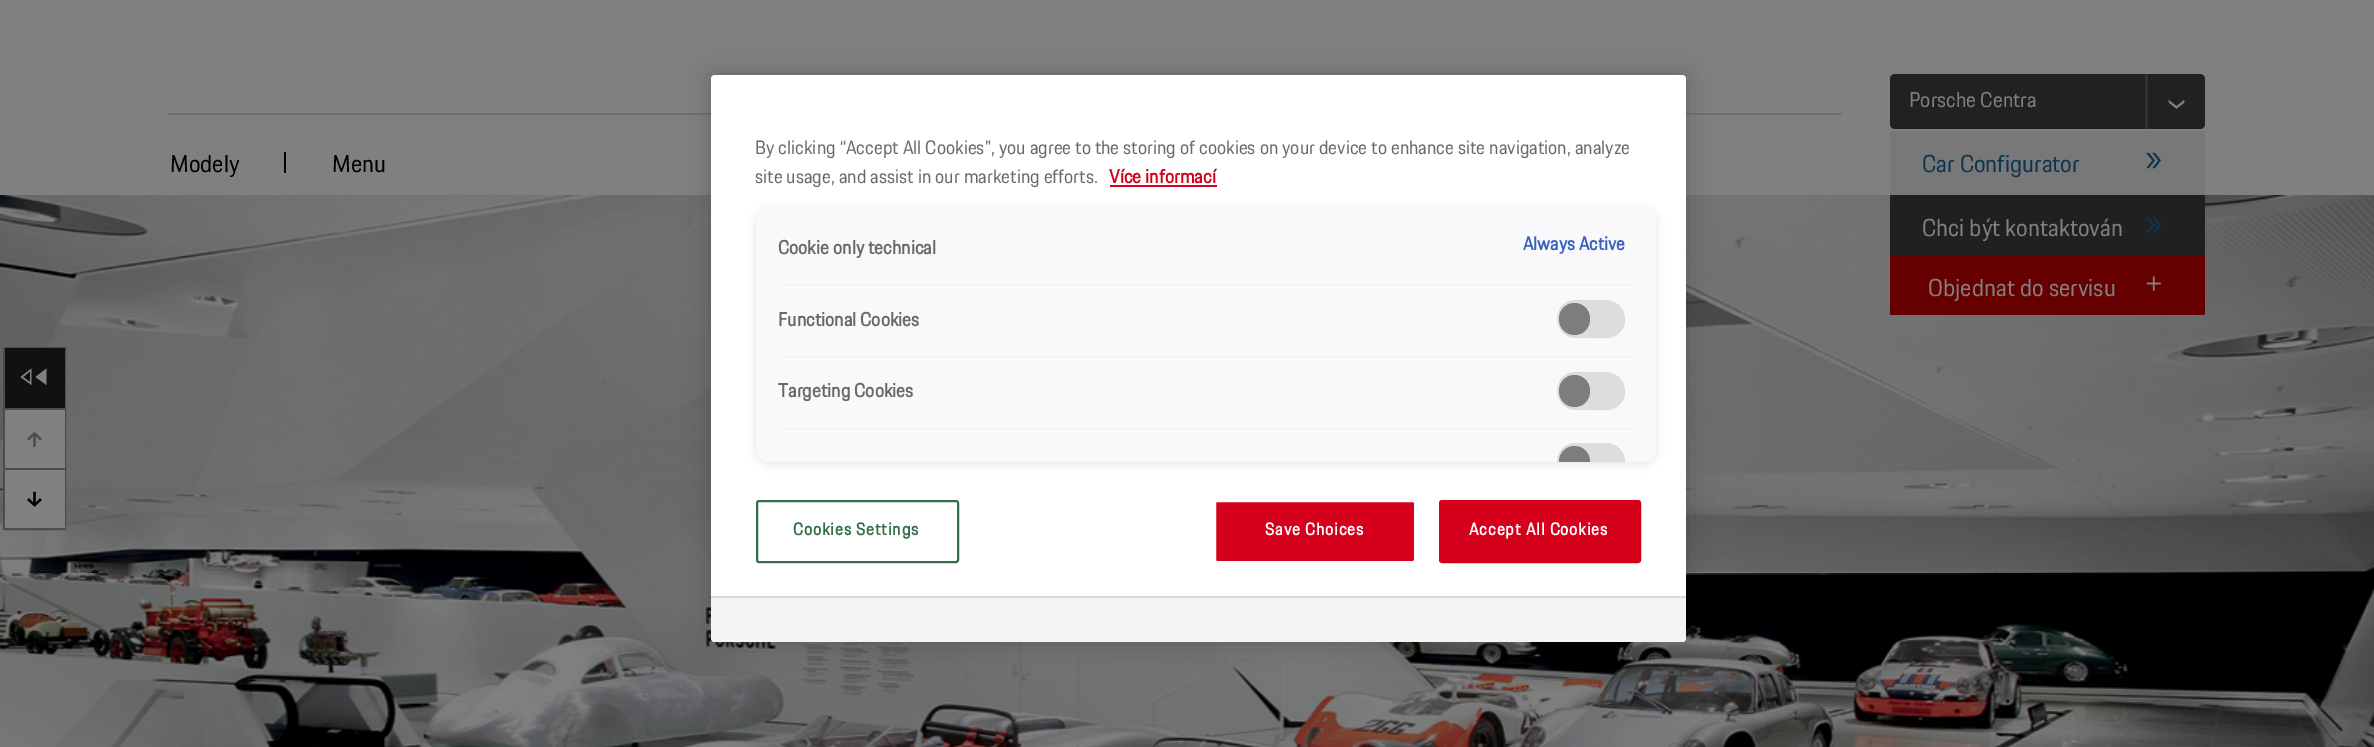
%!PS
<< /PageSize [2374 747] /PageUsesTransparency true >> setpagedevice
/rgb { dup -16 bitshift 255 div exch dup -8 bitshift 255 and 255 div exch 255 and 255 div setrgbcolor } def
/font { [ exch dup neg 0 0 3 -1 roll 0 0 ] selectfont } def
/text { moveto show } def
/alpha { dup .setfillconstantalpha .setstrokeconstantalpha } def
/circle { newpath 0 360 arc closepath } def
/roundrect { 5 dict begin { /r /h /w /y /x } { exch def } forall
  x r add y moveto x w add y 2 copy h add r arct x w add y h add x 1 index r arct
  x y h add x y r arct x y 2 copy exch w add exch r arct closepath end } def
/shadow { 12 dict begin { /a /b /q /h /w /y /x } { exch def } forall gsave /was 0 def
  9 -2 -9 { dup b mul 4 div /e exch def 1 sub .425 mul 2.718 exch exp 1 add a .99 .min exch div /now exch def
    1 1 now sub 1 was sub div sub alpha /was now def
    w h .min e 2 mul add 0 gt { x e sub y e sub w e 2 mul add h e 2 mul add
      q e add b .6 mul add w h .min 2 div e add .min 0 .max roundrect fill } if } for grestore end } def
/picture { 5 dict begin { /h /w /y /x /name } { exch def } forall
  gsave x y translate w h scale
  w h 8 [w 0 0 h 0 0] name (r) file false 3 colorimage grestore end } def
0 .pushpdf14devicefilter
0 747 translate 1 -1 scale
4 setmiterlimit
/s1 { /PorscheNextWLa-Regular 24 font 16#000000 rgb } def
/s2 { /PorscheNextWLa-Regular 21 font 16#808080 rgb } def
/s3 { /PorscheNextWLa-Regular 24 font 16#0D354D rgb } def
/s4 { /PorscheNextWLa-Regular 24 font 16#808080 rgb } def
/s5 { /PorscheNextWLa-Regular 18.9 font 16#696969 rgb } def
/s6 { /PorscheNextWLa-Bold 18.9 font 16#D5001C rgb } def
/s7 { /PorscheNextWLa-Bold 18.9 font 16#696969 rgb } def
/s8 { /PorscheNextWLa-Bold 18.5 font 16#3860BE rgb } def
16#808080 rgb
0 0 2374 747 rectfill
s1
(Modely) 170 172 text
284 152 2 21 rectfill
(Menu) 332 172 text
16#1F2123 rgb
1890 74 315 55 5 roundrect fill
s2
(Porsche Centra) 1909 107 text
16#2F3133 rgb
2145 74 3 55 rectfill
(pic1.raw) 2168 99 17 10 picture
16#787879 rgb
1890 131 315 64 rectfill
s3
(Car Configurator) 1922 172 text
(pic2.raw) 2146 152 9 17 picture
(pic3.raw) 2152 152 9 17 picture
(pic7.raw) 0 195 2374 552 picture
16#202023 rgb
1890 195 315 60 rectfill
s4
(Chci být kontaktován) 1922 236 text
(pic4.raw) 2146 217 9 16 picture
(pic5.raw) 2152 217 9 16 picture
16#660000 rgb
1890 255 315 60 rectfill
s4
(Objednat do servisu) 1928 296 text
(pic6.raw) 2146 276 15 15 picture
16#707070 rgb
167 113 1675 2 rectfill
16#4D4D4D rgb
2 setlinewidth
4 348 61 181 rectstroke
16#111111 rgb
5 348 60 60 rectfill
16#808080 rgb
20.5 377 moveto 31.5 385 lineto 31.5 368.5 lineto closepath 23 377 moveto 30 371.5 lineto 30 382 lineto closepath 35.5 377 moveto 46.5 368.5 lineto 46.5 385 lineto closepath fill
5 410 60 58 rectfill
16#4D4D4D rgb
5 408 60 2 rectfill
(pic8.raw) 27 431 15 16 picture
16#808080 rgb
5 470 60 58 rectfill
16#4D4D4D rgb
5 468 60 2 rectfill
(pic9.raw) 27 491 15 16 picture
16#000000 rgb
711 75 975 567 4 13.5 0.2 shadow
16#FFFFFF rgb
711 75 975 567 4 roundrect fill
s5
(By clicking “Accept All Cookies”, you agree to the storing of cookies on your device to enhance site navigation, analyze) 755 154 text
(site usage, and assist in our marketing efforts.) 755 183 text
s6
(Více informací) 1109 183 text
1110 185 107 2 rectfill
16#000000 rgb
756 209 900 255 12 4.5 0.1 shadow
16#F9F9FC rgb
756 207 900 255 12 roundrect fill
16#F4F4F4 rgb
779 284 855 2 rectfill
s7
(Cookie only technical) 778 254 text
s8
(Always Active) 1523 250 text
16#F4F4F4 rgb
779 356 855 2 rectfill
s7
(Functional Cookies) 778 326 text
16#F2F1F1 rgb
1557 300 68 38 19 roundrect fill
16#DDDDDD rgb
1576 300 moveto 1606 300 lineto 1626 301 1633 328 1613 337 curveto 1607 339 1598 338 1591 338 curveto 1576 338 lineto 1551 337 1551 300 1576 300 curveto closepath fill
16#7D7D7D rgb
1559 303 31 32 15.5 roundrect fill
16#F4F4F4 rgb
779 428 855 2 rectfill
s7
(Targeting Cookies) 778 397 text
16#F2F1F1 rgb
1557 372 68 38 19 roundrect fill
16#DDDDDD rgb
1576 372 moveto 1606 372 lineto 1626 373 1633 400 1613 409 curveto 1607 411 1598 410 1591 410 curveto 1576 410 lineto 1551 409 1551 372 1576 372 curveto closepath fill
16#7D7D7D rgb
1559 375 31 32 15.5 roundrect fill
gsave
756 207 900 255 12 roundrect clip newpath
16#F2F1F1 rgb
1557 443 68 37 18.5 roundrect fill
grestore
16#DDDDDD rgb
1576 443 moveto 1565 443 1557 452 1557 462 curveto 1625 462 lineto 1625 452 1617 443 1606 443 curveto closepath fill
gsave
756 207 900 255 12 roundrect clip newpath
16#7D7D7D rgb
1574.5 461.5 15.5 circle fill
grestore
16#346E4A rgb
757 501 201 61 2 roundrect stroke
/PorscheNextWLa-Bold 17 font
793 535 moveto 0.8 0 (Cookies Settings) ashow
16#D5001C rgb
1215 501 200 61 2 roundrect gsave fill grestore
16#FFFFFF rgb
stroke
1265 535 moveto 0.8 0 (Save Choices) ashow
16#D5001C rgb
1440 501 200 61 2 roundrect gsave fill grestore
stroke
16#FFFFFF rgb
1469 535 moveto 0.8 0 (Accept All Cookies) ashow
16#F4F4F4 rgb
711 596 moveto 1686 596 lineto 1686 638 lineto 1686 640 1684 642 1682 642 curveto 715 642 lineto 713 642 711 640 711 638 curveto closepath fill
16#D8D8D8 rgb
711 596 975 2 rectfill
.poppdf14devicefilter showpage
